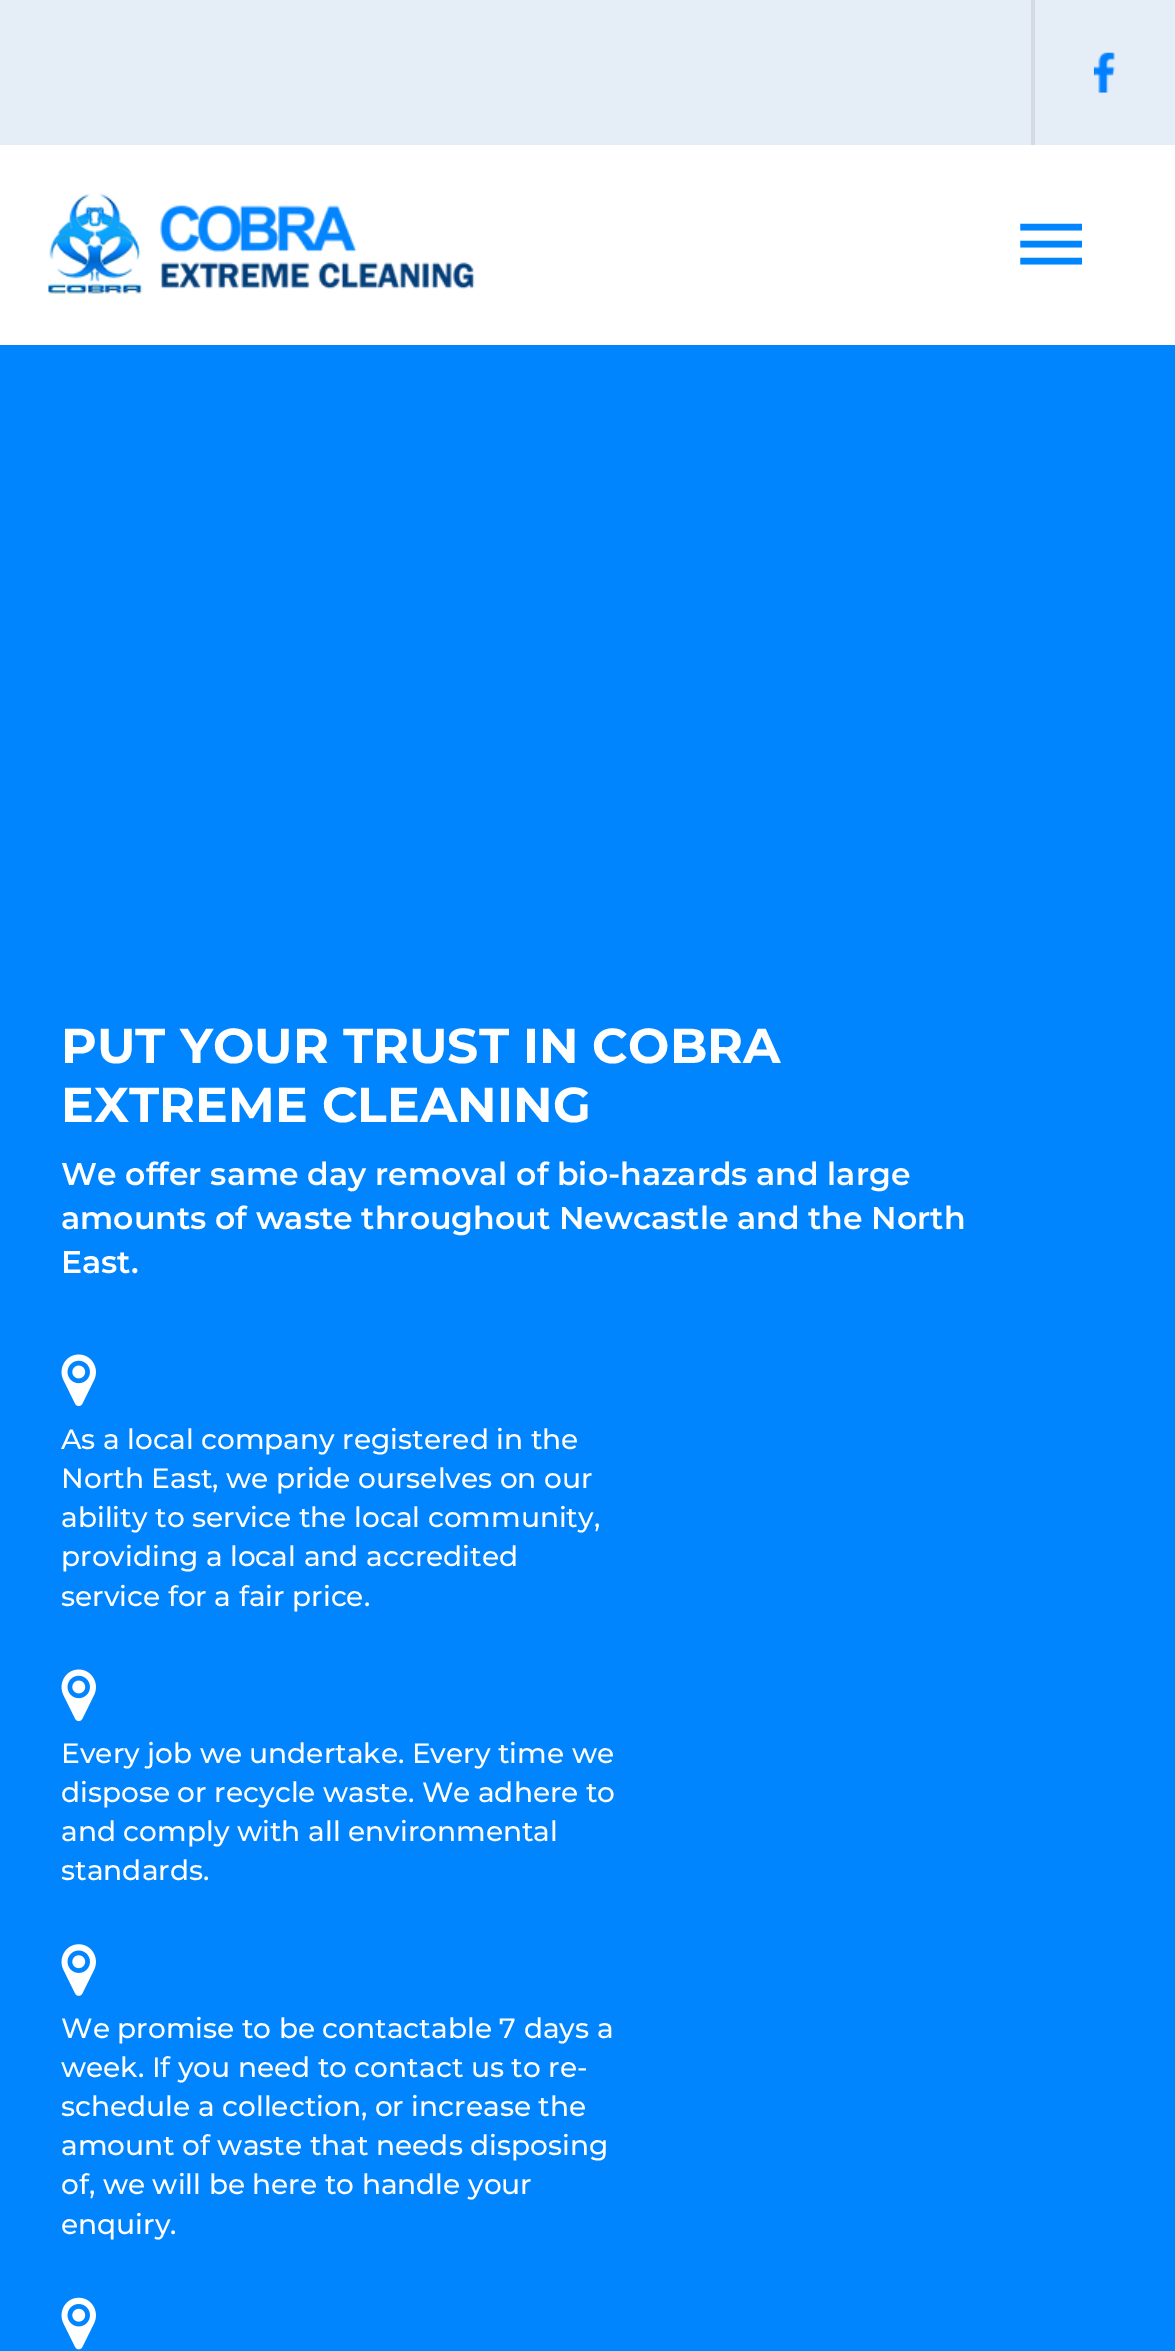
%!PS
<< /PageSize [1175 2351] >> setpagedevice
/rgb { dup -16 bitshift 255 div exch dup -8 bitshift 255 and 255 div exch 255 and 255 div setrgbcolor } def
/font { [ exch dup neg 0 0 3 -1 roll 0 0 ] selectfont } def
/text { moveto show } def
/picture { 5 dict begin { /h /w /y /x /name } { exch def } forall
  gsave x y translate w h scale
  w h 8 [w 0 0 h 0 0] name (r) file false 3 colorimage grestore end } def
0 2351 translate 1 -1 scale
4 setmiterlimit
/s1 { /Montserrat-Bold 49 font 16#FFFFFF rgb } def
/s2 { /Montserrat-SemiBold 31.5 font 16#FFFFFF rgb } def
/s3 { /Montserrat-Medium 28 font 16#FFFFFF rgb } def
16#FFFFFF rgb
0 0 1175 2351 rectfill
16#E5EEF7 rgb
0 0 1175 145 rectfill
16#D3DAE1 rgb
1031 0 4 145 rectfill
(pic1.raw) 1093 52 22 41 picture
(pic2.raw) 48 193 427 101 picture
16#0085FF rgb
3.5 setlinewidth
1080 225.5 moveto 1080 228.5 lineto 1022 228.5 lineto 1022 225.5 lineto closepath 1080 242.5 moveto 1080 245.5 lineto 1022 245.5 lineto 1022 242.5 lineto closepath 1080 259.5 moveto 1080 262.5 lineto 1022 262.5 lineto 1022 259.5 lineto closepath stroke
0 345 1175 2006 rectfill
s1
(PUT YOUR TRUST IN COBRA) 61 1063 text
(EXTREME CLEANING) 61 1122 text
s2
(We offer same day removal of bio-hazards and large) 61 1185 text
(amounts of waste throughout Newcastle and the North) 61 1229 text
(East.) 61 1273 text
(pic3.raw) 61 1354 35 53 picture
s3
(As a local company registered in the) 61 1449 text
(North East, we pride ourselves on our) 61 1488 text
(ability to service the local community,) 61 1527 text
(providing a local and accredited) 61 1566 text
(service for a fair price.) 61 1606 text
(pic3.raw) 61 1669 35 53 picture
(Every job we undertake. Every time we) 61 1763 text
(dispose or recycle waste. We adhere to) 61 1802 text
(and comply with all environmental) 61 1841 text
(standards.) 61 1880 text
(pic4.raw) 61 1944 35 52 picture
(We promise to be contactable 7 days a) 61 2038 text
(week. If you need to contact us to re-) 61 2077 text
(schedule a collection, or increase the) 61 2116 text
(amount of waste that needs disposing) 61 2155 text
(of, we will be here to handle your) 61 2194 text
(enquiry.) 61 2234 text
(pic5.raw) 61 2297 35 53 picture
showpage
